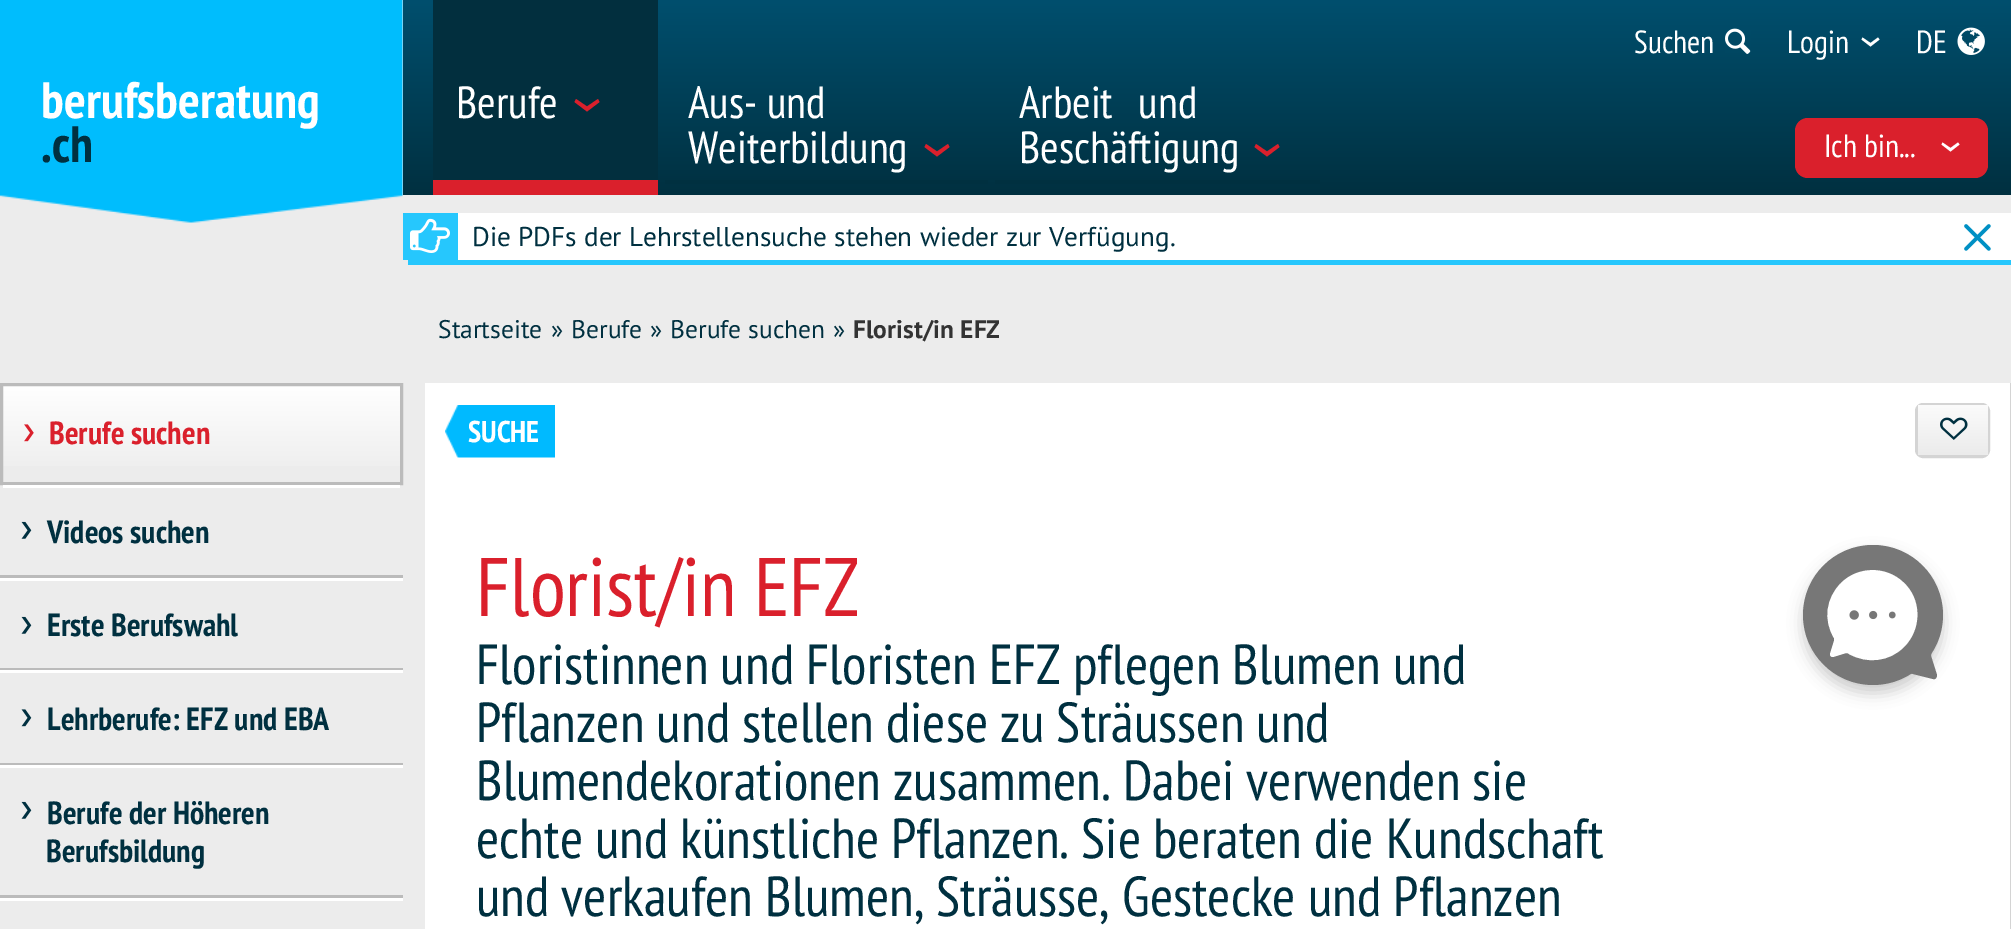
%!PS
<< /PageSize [2011 929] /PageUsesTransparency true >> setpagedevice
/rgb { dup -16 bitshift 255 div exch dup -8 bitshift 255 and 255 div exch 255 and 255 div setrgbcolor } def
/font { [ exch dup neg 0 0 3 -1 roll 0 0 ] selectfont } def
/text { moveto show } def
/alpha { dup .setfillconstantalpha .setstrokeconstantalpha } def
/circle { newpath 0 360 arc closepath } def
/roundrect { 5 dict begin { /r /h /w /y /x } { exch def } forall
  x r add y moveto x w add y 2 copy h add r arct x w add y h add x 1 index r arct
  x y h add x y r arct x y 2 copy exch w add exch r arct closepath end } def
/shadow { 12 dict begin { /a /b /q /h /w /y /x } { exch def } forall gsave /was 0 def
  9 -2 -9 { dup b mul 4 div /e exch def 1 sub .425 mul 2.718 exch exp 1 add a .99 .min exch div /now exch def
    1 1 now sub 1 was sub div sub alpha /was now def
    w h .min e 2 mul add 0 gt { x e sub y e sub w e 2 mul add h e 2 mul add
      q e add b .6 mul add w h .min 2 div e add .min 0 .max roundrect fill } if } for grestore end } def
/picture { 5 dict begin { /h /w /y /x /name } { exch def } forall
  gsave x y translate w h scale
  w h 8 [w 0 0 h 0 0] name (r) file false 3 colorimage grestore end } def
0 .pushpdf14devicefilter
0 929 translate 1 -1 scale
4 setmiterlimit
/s1 { /PTSansNarrow-Bold 51.25 font 16#FFFFFF rgb } def
/s2 { /PTSansNarrow-Bold 51.25 font 16#003040 rgb } def
/s3 { /PTSansNarrow-Regular 32 font 16#FFFFFF rgb } def
/s4 { /PTSansNarrow-Regular 45 font 16#FFFFFF rgb } def
/s5 { /PTSans-Regular 27.2 font 16#003040 rgb } def
/s6 { /PTSans-Regular 25.5 font 16#003040 rgb } def
/s7 { /PTSans-Bold 25.5 font 16#333333 rgb } def
/s8 { /PTSansNarrow-Bold 32 font 16#DA202C rgb } def
/s9 { /PTSansNarrow-Bold 32 font 16#003040 rgb } def
/s10 { /PTSansNarrow-Bold 30 font 16#FFFFFF rgb } def
/s11 { /PTSansNarrow-Regular 83 font 16#DA202C rgb } def
/s12 { /PTSansNarrow-Regular 56.3 font 16#003040 rgb } def
16#ECECEC rgb
0 0 2011 929 rectfill
(pic1.raw) 0 0 403 223 picture
s1
(berufsberatung) 41 118 text
s2
(.ch) 41 162 text
gsave 403 0 moveto 2011 0 lineto 2011 195 lineto 403 195 lineto closepath clip newpath
<< /ShadingType 2 /ColorSpace /DeviceRGB /Coords [1208 0 1208 195] /Extend [true true] /Function << /FunctionType 2 /Domain [0 1] /C0 [0 0.31 0.431] /C1 [0 0.188 0.251] /N 1 >> >> shfill grestore
s3
(Suchen) 1634 53 text
(pic2.raw) 1725 28 26 26 picture
(Login) 1787 53 text
1862.5 37.5 moveto 1870.5 43 lineto 1878 37.5 lineto 1879.5 39.5 lineto 1870.5 46.5 lineto 1861.5 39.5 lineto closepath fill
(DE) 1916 53 text
(pic3.raw) 1957 27 28 28 picture
16#022F3E rgb
433 0 225 180 rectfill
16#DA202C rgb
433 180 225 15 rectfill
s4
(Berufe) 456 118 text
16#DA202C rgb
576 99 moveto 587 106.5 lineto 598 99 lineto 599.5 102 lineto 587 111.5 lineto 574.5 102 lineto closepath fill
16#003040 rgb
665 180 323 4 rectfill
s4
(Aus- und) 688 118 text
(Weiterbildung) 688 163 text
16#DA202C rgb
926 144 moveto 937 151.5 lineto 948 144 lineto 949.5 147 lineto 937 156.5 lineto 924.5 147 lineto closepath fill
16#003040 rgb
995 180 325 4 rectfill
16#FFFFFF rgb
1019 118 moveto 16 0 32 (Arbeit und) widthshow
(Beschäftigung) 1019 163 text
16#DA202C rgb
1256 144 moveto 1267 151.5 lineto 1278 144 lineto 1279.5 147 lineto 1267 156.5 lineto 1254.5 147 lineto closepath fill
1795 118 193 60 13 roundrect fill
s3
(Ich bin...) 1824 157 text
1942.5 142.5 moveto 1950.5 148 lineto 1958 142.5 lineto 1959.5 144.5 lineto 1950.5 151.5 lineto 1941.5 144.5 lineto closepath fill
16#26C7FD rgb
408 260 moveto 408 265 lineto 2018 265 lineto 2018 218 lineto 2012 218 lineto 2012 260 lineto closepath fill
16#FFFFFF rgb
458 213 1553 47 rectfill
16#26C7FD rgb
403 213 55 47 rectfill
(pic4.raw) 410 218 40 35 picture
s5
(Die PDFs der Lehrstellensuche stehen wieder zur Verfügung.) 472 246 text
(pic5.raw) 1964 224 27 27 picture
s6
(Startseite) 438 338 text
(») 551 338 text
(Berufe) 571 338 text
(») 650 338 text
(Berufe suchen) 670 338 text
(») 833 338 text
s7
(Florist/in EFZ) 853 338 text
gsave 3 386 moveto 400 386 lineto 400 466 lineto 3 466 lineto closepath clip newpath
<< /ShadingType 2 /ColorSpace /DeviceRGB /Coords [201 385 201 483] /Extend [true true] /Function << /FunctionType 2 /Domain [0 1] /C0 [1 1 1] /C1 [0.922 0.922 0.922] /N 1 >> >> shfill grestore
16#BBBBBB rgb
3 setlinewidth
1.5 384.5 400 99 rectstroke
(pic6.raw) 24 424 10 18 picture
s8
(Berufe suchen) 49 444 text
16#FFFFFF rgb
3 485 397 3 rectfill
16#BBBBBB rgb
0 575 403 3 rectfill
(pic7.raw) 21 521 11 18 picture
s9
(Videos suchen) 47 543 text
16#FFFFFF rgb
0 578 403 3 rectfill
16#BBBBBB rgb
0 668 403 2 rectfill
(pic7.raw) 21 616 11 18 picture
s9
(Erste Berufswahl) 47 636 text
16#FFFFFF rgb
0 670 403 3 rectfill
16#BBBBBB rgb
0 763 403 2 rectfill
(pic8.raw) 21 709 11 18 picture
s9
(Lehrberufe: EFZ und EBA) 47 730 text
16#FFFFFF rgb
0 765 403 3 rectfill
16#BBBBBB rgb
0 895 403 3 rectfill
(pic7.raw) 21 801 11 18 picture
s9
(Berufe der Höheren) 47 824 text
(Berufsbildung) 46 862 text
16#FFFFFF rgb
0 898 403 3 rectfill
425 383 1585 546 rectfill
16#D4D4D4 rgb
2010 383 1 546 rectfill
(pic9.raw) 445 405 110 53 picture
s10
(SUCHE) 468 442 text
16#D4D4D4 rgb
1916.5 404.5 72 52 6.5 roundrect stroke
gsave 1918 405 moveto 1988 405 lineto 1988 455 lineto 1918 455 lineto closepath clip newpath
<< /ShadingType 2 /ColorSpace /DeviceRGB /Coords [1953 405 1953 455] /Extend [true true] /Function << /FunctionType 2 /Domain [0 1] /C0 [0.984 0.984 0.984] /C1 [0.922 0.922 0.922] /N 1 >> >> shfill grestore
(pic10.raw) 1940 417 28 23 picture
s11
(Florist/in EFZ) 476 616 text
s12
(Floristinnen und Floristen EFZ pflegen Blumen und) 476 684 text
(Pflanzen und stellen diese zu Sträussen und) 476 742 text
(Blumendekorationen zusammen. Dabei verwenden sie) 476 800 text
(echte und künstliche Pflanzen. Sie beraten die Kundschaft) 476 858 text
(und verkaufen Blumen, Sträusse, Gestecke und Pflanzen) 476 916 text
16#000000 rgb
1803 553 140 140 70 7.5 0.2 shadow
16#777777 rgb
1873 615 70 circle fill
1922 566 moveto 1894 538 1849 539 1822 568 curveto 1797 595 1798 637 1823 663 curveto 1846 687 1881 690 1908 675 curveto 1909 674 1911 673 1913 674 curveto 1933 679 lineto 1935 680 1937 678 1937 675 curveto 1931 656 lineto 1931 654 1931 652 1932 651 curveto 1948 624 1945 589 1922 566 curveto closepath fill
16#FFFFFF rgb
1904 647 moveto 1922 629 1922 599 1903 582 curveto 1886 566 1858 566 1841 583 curveto 1826 598 1823 620 1834 638 curveto 1834 639 1834 640 1834 641 curveto 1830 654 lineto 1830 656 1831 657 1833 657 curveto 1846 653 lineto 1847 653 1848 653 1849 654 curveto 1867 664 1889 662 1904 647 curveto closepath fill
(pic11.raw) 1849 610 47 10 picture
.poppdf14devicefilter showpage
